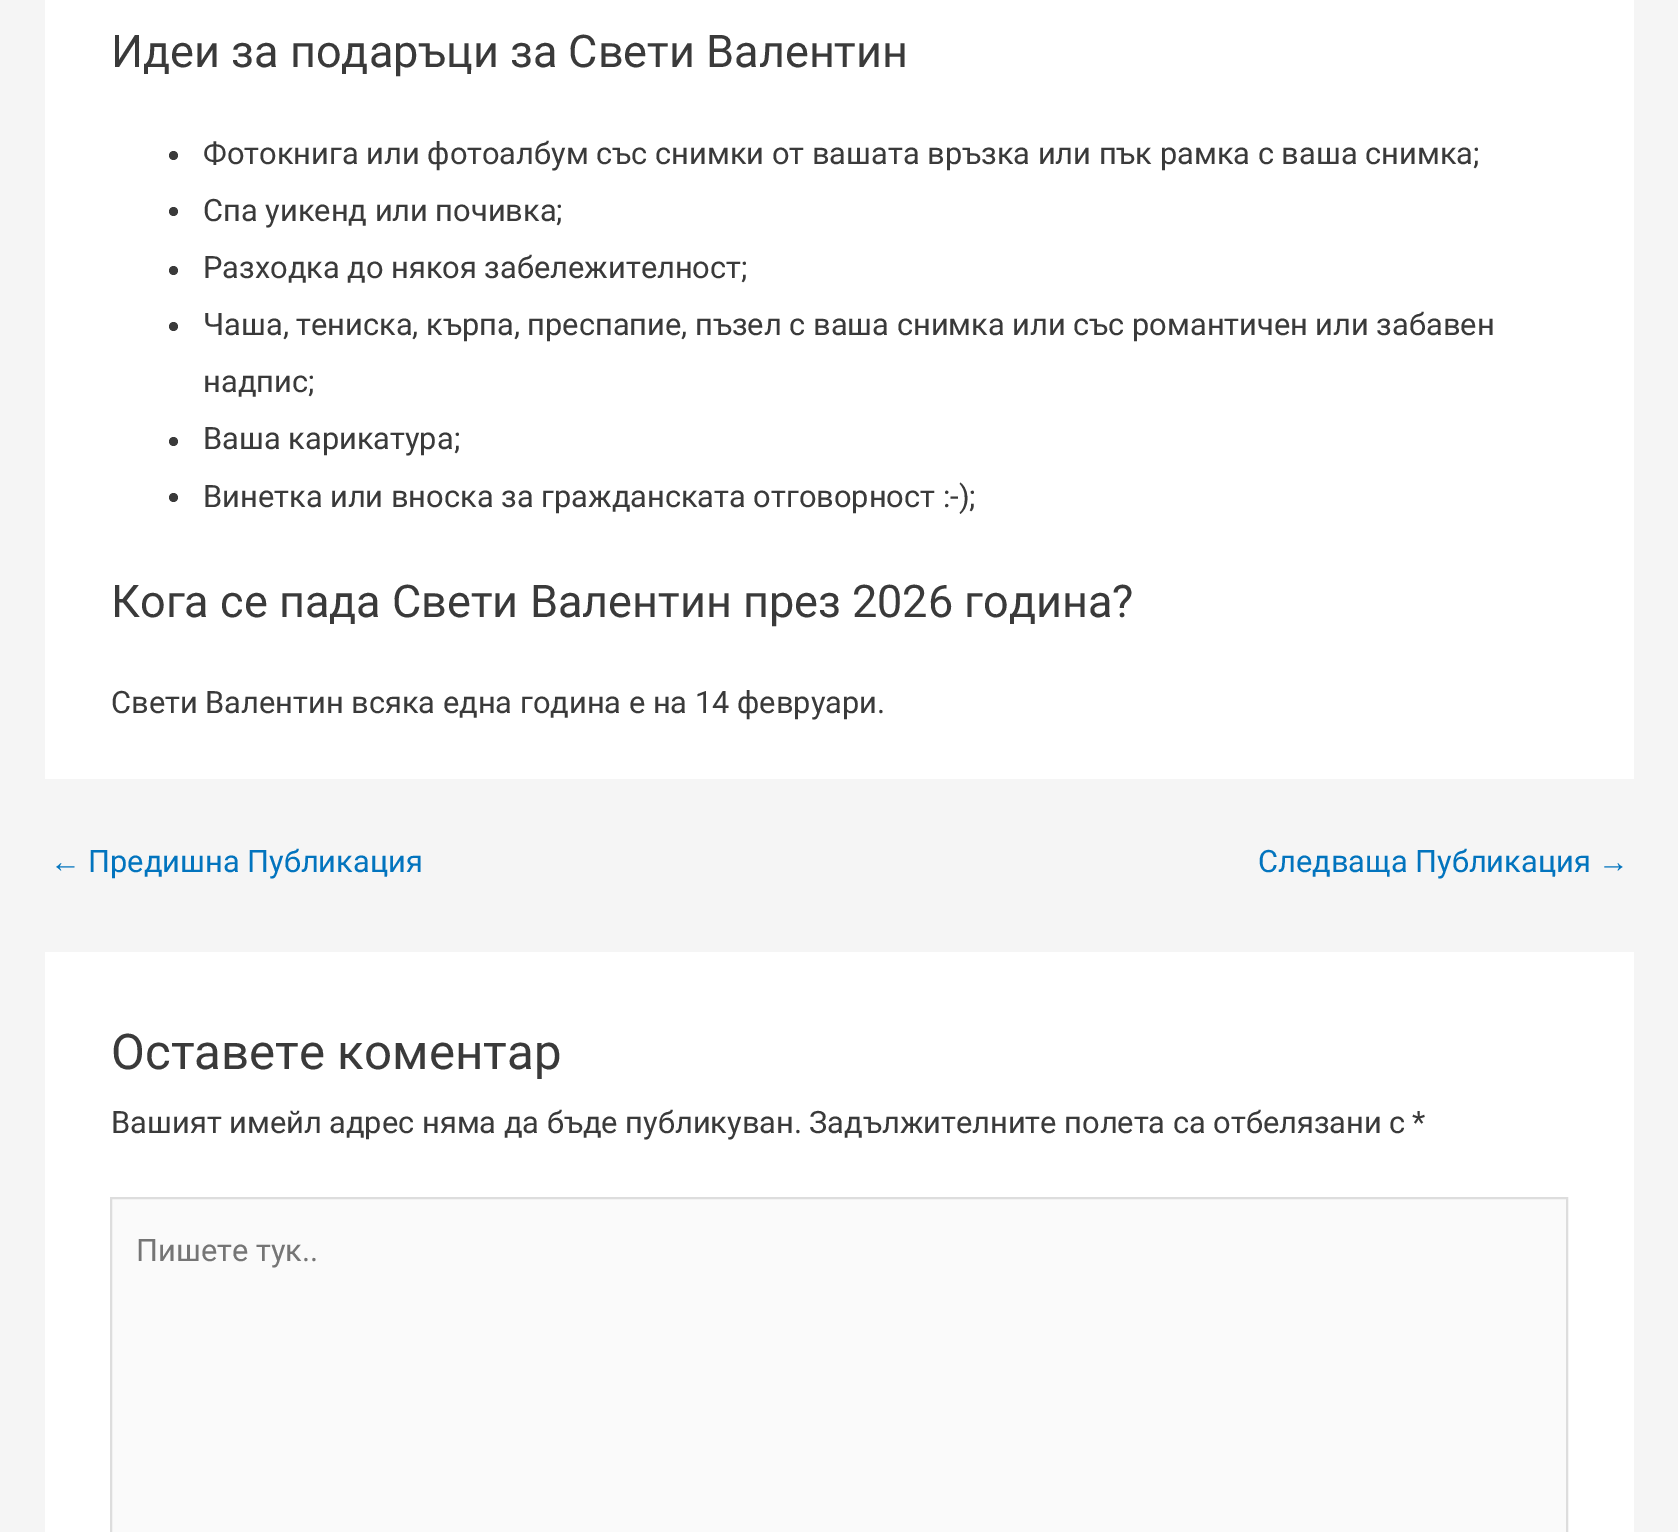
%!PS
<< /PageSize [1678 1532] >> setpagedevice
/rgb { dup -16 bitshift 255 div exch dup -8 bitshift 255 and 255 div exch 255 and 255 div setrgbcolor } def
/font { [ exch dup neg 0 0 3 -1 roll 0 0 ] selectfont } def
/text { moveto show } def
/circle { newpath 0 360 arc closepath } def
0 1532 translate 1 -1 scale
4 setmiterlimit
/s1 { /Roboto-Regular 45 font 16#3A3A3A rgb } def
/s2 { /Roboto-Regular 30.8 font 16#3A3A3A rgb } def
/s3 { /LiberationSans-Regular 30.8 font 16#0274BE rgb } def
/s4 { /Roboto-Regular 30.8 font 16#0274BE rgb } def
/s5 { /Roboto-Regular 49.25 font 16#3A3A3A rgb } def
/s6 { /Roboto-Regular 30.8 font 16#757575 rgb } def
16#F5F5F5 rgb
0 0 1678 1532 rectfill
16#FFFFFF rgb
45 0 1589 779 rectfill
s1
(Идеи за подаръци за Свети Валентин) 111 67 text
173.5 155.5 4.5 circle fill
s2
(Фотокнига или фотоалбум със снимки от вашата връзка или пък рамка с ваша снимка;) 203 164 text
173.5 211.5 4.5 circle fill
(Спа уикенд или почивка;) 203 221 text
173.5 270.5 4.5 circle fill
(Разходка до някоя забележителност;) 203 278 text
173.5 326.5 4.5 circle fill
(Чаша, тениска, кърпа, преспапие, пъзел с ваша снимка или със романтичен или забавен) 203 335 text
(надпис;) 203 392 text
173.5 441.5 4.5 circle fill
(Ваша карикатура;) 203 449 text
173.5 497.5 4.5 circle fill
(Винетка или вноска за гражданската отговорност :-\);) 203 507 text
s1
(Кога се пада Свети Валентин през 2026 година?) 111 617 text
s2
(Свети Валентин всяка една година е на 14 февруари.) 111 713 text
s3
(←) 50 872 text
s4
(Предишна Публикация) 88 872 text
(Следваща Публикация) 1258 872 text
s3
(→) 1598 872 text
16#FFFFFF rgb
45 952 1589 580 rectfill
s5
(Оставете коментар) 111 1069 text
s2
(Вашият имейл адрес няма да бъде публикуван.) 111 1133 text
(Задължителните полета са отбелязани с) 809 1133 text
(*) 1412 1133 text
16#FAFAFA rgb
111 1198 moveto 1567 1198 lineto 1567 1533 lineto 111 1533 lineto closepath gsave fill grestore
16#DDDDDD rgb
2 setlinewidth
stroke
s6
(Пишете тук..) 136 1261 text
showpage
